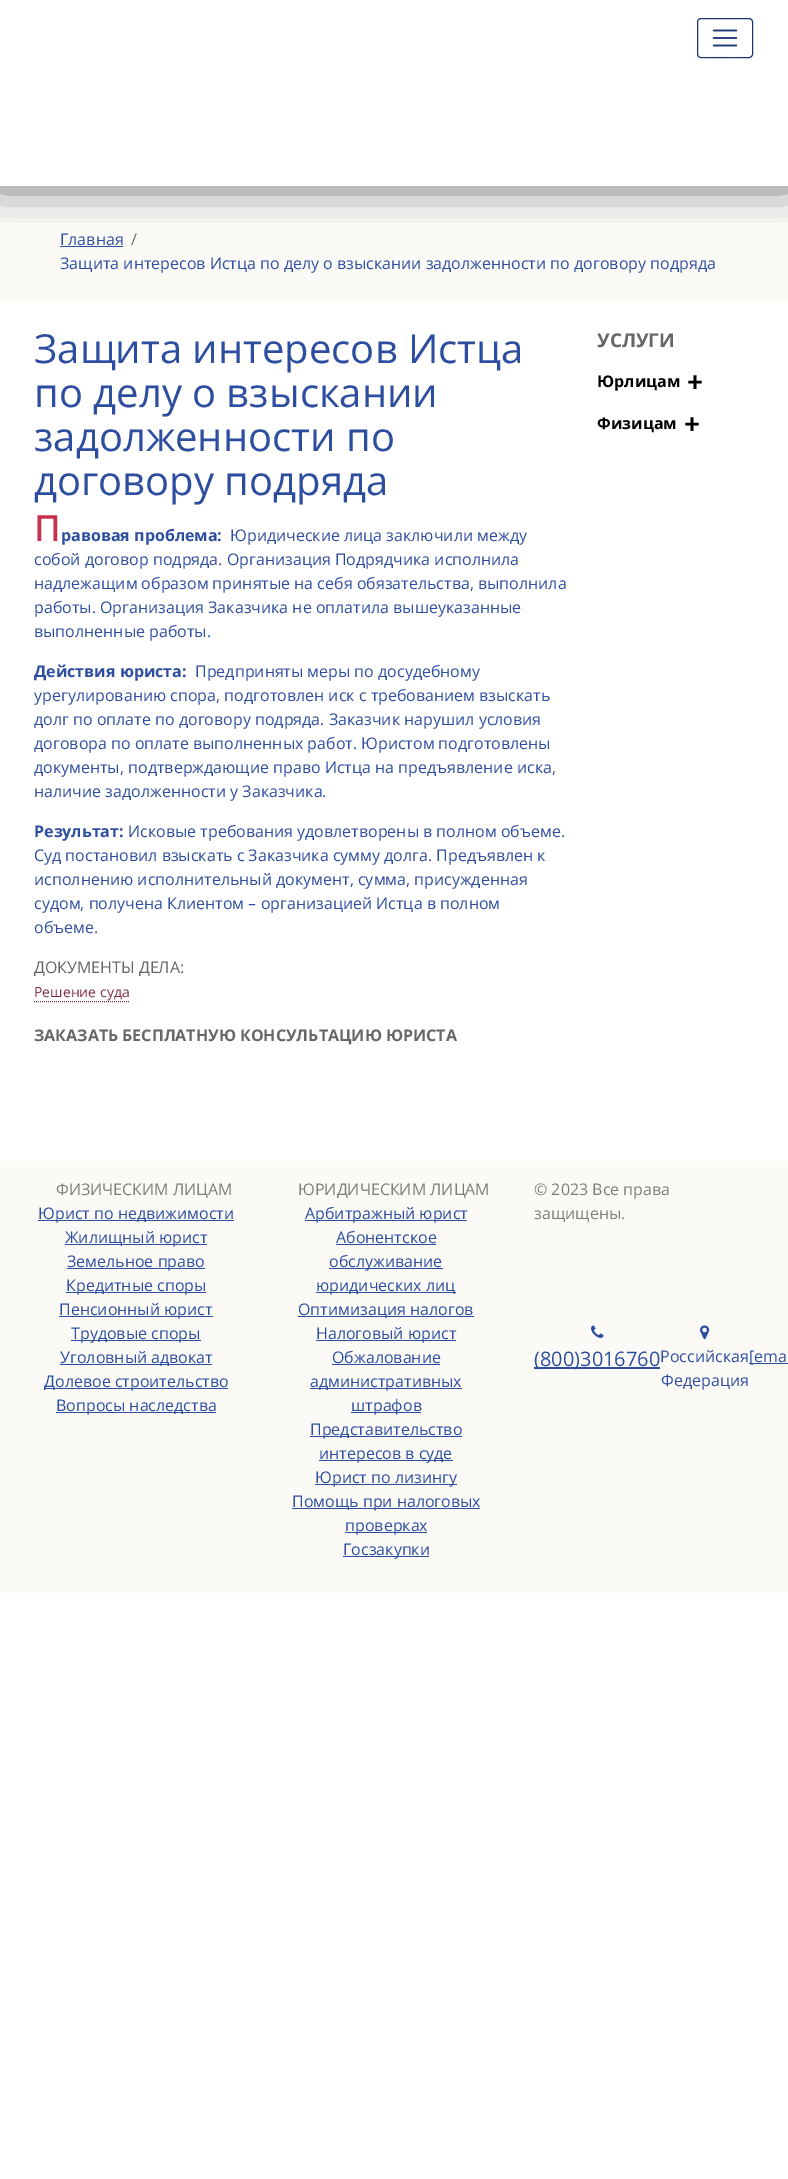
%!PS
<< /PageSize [788 2179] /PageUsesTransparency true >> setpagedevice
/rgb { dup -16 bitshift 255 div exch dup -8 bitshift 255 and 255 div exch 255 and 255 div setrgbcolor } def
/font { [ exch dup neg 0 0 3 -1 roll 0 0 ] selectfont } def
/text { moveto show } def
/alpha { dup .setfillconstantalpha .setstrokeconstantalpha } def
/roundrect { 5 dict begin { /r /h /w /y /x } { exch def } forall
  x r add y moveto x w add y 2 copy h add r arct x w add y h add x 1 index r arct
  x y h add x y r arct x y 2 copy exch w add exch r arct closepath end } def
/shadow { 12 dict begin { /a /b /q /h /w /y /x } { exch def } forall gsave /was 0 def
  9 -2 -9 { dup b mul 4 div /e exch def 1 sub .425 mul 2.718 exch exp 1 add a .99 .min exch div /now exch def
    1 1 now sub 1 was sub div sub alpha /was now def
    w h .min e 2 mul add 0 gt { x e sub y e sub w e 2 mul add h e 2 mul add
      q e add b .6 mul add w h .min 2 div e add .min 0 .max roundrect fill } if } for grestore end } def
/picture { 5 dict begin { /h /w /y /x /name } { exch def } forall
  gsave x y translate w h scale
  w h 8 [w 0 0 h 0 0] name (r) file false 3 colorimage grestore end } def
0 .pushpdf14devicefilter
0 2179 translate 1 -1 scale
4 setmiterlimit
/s1 { /OpenSans-Regular 16 font 16#2D4E9F rgb } def
/s2 { /OpenSans-Regular 16 font 16#636C72 rgb } def
/s3 { /OpenSans-Regular 40 font 16#2D4E9F rgb } def
/s4 { /NotoSans-Medium 36 font 16#C92E4D rgb } def
/s5 { /OpenSans-Bold 16 font 16#2D4E9F rgb } def
/s6 { /OpenSans-Regular 16 font 16#666666 rgb } def
/s7 { /OpenSans-Regular 14 font 16#802E3E rgb } def
/s8 { /OpenSans-Bold 16 font 16#666666 rgb } def
/s9 { /OpenSans-Bold 19 font 16#666666 rgb } def
/s10 { /OpenSans-Bold 16 font 16#000000 rgb } def
/s11 { /OpenSans-Bold 28 font 16#000000 rgb } def
/s12 { /OpenSans-Regular 16 font 16#7E7D7C rgb } def
/s13 { /OpenSans-Regular 20 font 16#2D4E9F rgb } def
16#FFFFFF rgb
0 0 788 2179 rectfill
16#FBFAF7 rgb
0 186 788 116 rectfill
gsave
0 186 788 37 rectclip
16#000000 rgb
-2 -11 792 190 0 22.5 0.81 shadow
grestore
16#1B3575 rgb
697.5 18.5 55 39 3.5 roundrect stroke
(pic1.raw) 712 29 26 18 picture
s1
(Главная) 60 245 text
60 246 63 1 rectfill
s2
(/) 131 245 text
s1
(Защита интересов Истца по делу о взыскании задолженности по договору подряда) 60 269 text
s3
(Защита интересов Истца) 34 363 text
(по делу о взыскании) 34 407 text
(задолженности по) 34 451 text
(договору подряда) 34 495 text
s4
(П) 34 541 text
s5
(равовая проблема:) 61 541 text
s1
(Юридические лица заключили между) 230 541 text
(собой договор подряда. Организация Подрядчика исполнила) 34 565 text
(надлежащим образом принятые на себя обязательства, выполнила) 34 589 text
(работы. Организация Заказчика не оплатила вышеуказанные) 34 613 text
(выполненные работы.) 34 637 text
s5
(Действия юриста:) 34 677 text
s1
(Предприняты меры по досудебному) 195 677 text
(урегулированию спора, подготовлен иск с требованием взыскать) 34 701 text
(долг по оплате по договору подряда. Заказчик нарушил условия) 34 725 text
(договора по оплате выполненных работ. Юристом подготовлены) 34 749 text
(документы, подтверждающие право Истца на предъявление иска,) 34 773 text
(наличие задолженности у Заказчика.) 34 797 text
s5
(Результат:) 34 837 text
s1
(Исковые требования удовлетворены в полном объеме.) 128 837 text
(Суд постановил взыскать с Заказчика сумму долга. Предъявлен к) 34 861 text
(исполнению исполнительный документ, сумма, присужденная) 34 885 text
(судом, получена Клиентом – организацией Истца в полном) 34 909 text
(объеме.) 34 933 text
s6
(ДОКУМЕНТЫ ДЕЛА:) 34 973 text
s7
(Решение суда) 34 997 text
[1 1] 0 setdash
34 1001.5 moveto 129 1001.5 lineto stroke
s8
(ЗАКАЗАТЬ БЕСПЛАТНУЮ КОНСУЛЬТАЦИЮ ЮРИСТА) 34 1041 text
s9
(УСЛУГИ) 597 347 text
s10
(Юрлицам) 597 387 text
s11
(+) 687 392 text
s10
(Физицам) 597 429 text
s11
(+) 684 434 text
16#FBFAF7 rgb
0 1161 788 432 rectfill
s12
(ФИЗИЧЕСКИМ ЛИЦАМ) 56 1195 text
16#2D4E9F rgb
38 1220 196 1 rectfill
(Юрист по недвижимости) 38 1219 text
65 1244 142 1 rectfill
(Жилищный юрист) 65 1243 text
67 1268 138 1 rectfill
(Земельное право) 67 1267 text
66 1292 140 1 rectfill
(Кредитные споры) 66 1291 text
59 1316 154 1 rectfill
(Пенсионный юрист) 59 1315 text
71 1340 130 1 rectfill
(Трудовые споры) 71 1339 text
60 1364 152 1 rectfill
(Уголовный адвокат) 60 1363 text
44 1388 184 1 rectfill
(Долевое строительство) 44 1387 text
56 1412 160 1 rectfill
(Вопросы наследства) 56 1411 text
s12
(ЮРИДИЧЕСКИМ ЛИЦАМ) 298 1195 text
16#2D4E9F rgb
305 1220 162 1 rectfill
(Арбитражный юрист) 305 1219 text
(Абонентское) 336 1243 text
336 1244 100 1 rectfill
329 1268 114 1 rectfill
(обслуживание) 329 1267 text
316 1292 140 1 rectfill
(юридических лиц) 316 1291 text
298 1316 176 1 rectfill
(Оптимизация налогов) 298 1315 text
316 1340 140 1 rectfill
(Налоговый юрист) 316 1339 text
(Обжалование) 332 1363 text
332 1364 108 1 rectfill
310 1388 152 1 rectfill
(административных) 310 1387 text
351 1412 70 1 rectfill
(штрафов) 351 1411 text
310 1436 152 1 rectfill
(Представительство) 310 1435 text
319 1460 134 1 rectfill
(интересов в суде) 319 1459 text
315 1484 142 1 rectfill
(Юрист по лизингу) 315 1483 text
292 1508 188 1 rectfill
(Помощь при налоговых) 292 1507 text
345 1532 82 1 rectfill
(проверках) 345 1531 text
343 1556 86 1 rectfill
(Госзакупки) 343 1555 text
s12
(© 2023 Все права) 534 1195 text
(защищены.) 534 1219 text
(pic2.raw) 591 1325 13 13 picture
16#2D4E9F rgb
534 1367 126 2 rectfill
s13
(\(800\)3016760) 534 1366 text
(pic3.raw) 700 1325 10 15 picture
s1
(Российская) 660 1362 text
(Федерация) 661 1386 text
749 1363 39 1 rectfill
([ema) 749 1362 text
.poppdf14devicefilter showpage
